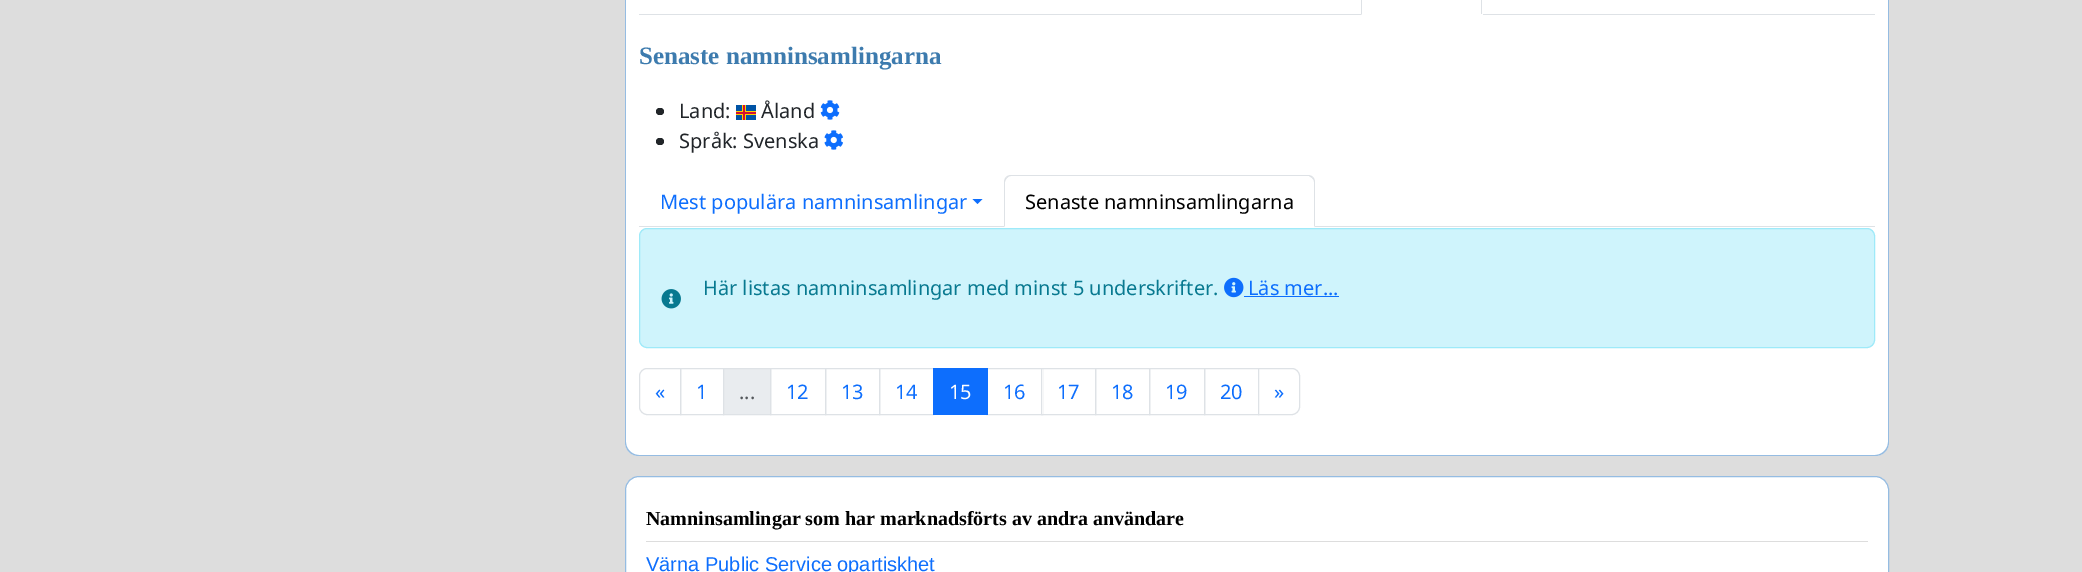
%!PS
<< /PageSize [2082 572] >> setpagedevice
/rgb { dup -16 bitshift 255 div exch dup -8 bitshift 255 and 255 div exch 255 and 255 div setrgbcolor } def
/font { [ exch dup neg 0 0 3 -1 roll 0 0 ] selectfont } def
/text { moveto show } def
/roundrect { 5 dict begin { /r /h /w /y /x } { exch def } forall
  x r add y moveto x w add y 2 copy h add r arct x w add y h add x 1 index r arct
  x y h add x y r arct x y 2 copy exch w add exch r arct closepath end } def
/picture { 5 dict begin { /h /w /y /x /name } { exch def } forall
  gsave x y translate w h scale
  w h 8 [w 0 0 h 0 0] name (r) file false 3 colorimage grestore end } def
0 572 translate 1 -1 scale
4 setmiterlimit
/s1 { /LiberationSerif-Bold 25 font 16#3D7BAE rgb } def
/s2 { /NotoSans-Regular 20 font 16#212529 rgb } def
/s3 { /NotoSans-Regular 20 font 16#0D6EFD rgb } def
/s4 { /NotoSans-Regular 20 font 16#000000 rgb } def
/s5 { /NotoSans-Regular 20 font 16#087990 rgb } def
/s6 { /NotoSans-Regular 20 font 16#53575B rgb } def
/s7 { /NotoSans-Regular 20 font 16#FFFFFF rgb } def
/s8 { /LiberationSerif-Bold 20 font 16#000000 rgb } def
/s9 { /LiberationSans-Regular 20 font 16#0D6EFD rgb } def
16#DDDDDD rgb
0 0 2082 572 rectfill
16#FFFFFF rgb
625 -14 moveto 1889 -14 lineto 1889 442 lineto 1889 449.5 1882.5 456 1875 456 curveto 639 456 lineto 631.5 456 625 449.5 625 442 curveto closepath fill
16#95BCE2 rgb
625 -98 moveto 1889 -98 lineto 1889 442 lineto 1889 450 1883 456 1875 456 curveto 639 456 lineto 631 456 625 450 625 442 curveto closepath 626 -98 moveto 1888 -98 lineto 1888 442 lineto 1888 449 1882 455 1875 455 curveto 639 455 lineto 632 455 626 449 626 442 curveto closepath eofill
16#DEE2E6 rgb
639 14 1236 1 rectfill
16#FFFFFF rgb
1361 14 122 1 rectfill
16#DEE2E6 rgb
1480 -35 moveto 1481 -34 1482 -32 1482 -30 curveto 1482 14 lineto 1481 14 lineto 1481 -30 lineto 1481 -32 1480 -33 1479 -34 curveto closepath fill
1361 15 moveto 1361 -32 lineto 1363 -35 lineto 1364 -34 lineto 1363 -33 1362 -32 1362 -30 curveto 1362 14 lineto closepath fill
s1
(Senaste namninsamlingarna) 639 64 text
s2
(Land:) 679 118 text
16#0053A5 rgb
736 105 20 15 rectfill
s2
(Åland) 761 118 text
(pic1.raw) 820 100 20 20 picture
16#FFCE00 rgb
742 105 4 15 rectfill
16#212529 rgb
656 108 8 7 3.5 roundrect fill
16#FFCE00 rgb
736 111 20 4 rectfill
16#D21034 rgb
743 105 2 15 rectfill
736 112 20 2 rectfill
16#212529 rgb
656 138 8 7 3.5 roundrect fill
(Språk: Svenska) 679 148 text
(pic2.raw) 824 130 19 20 picture
16#DEE2E6 rgb
639 226 1236 1 rectfill
s3
(Mest populära namninsamlingar) 660 209 text
972.5 199 moveto 982.5 199 lineto 977.5 204 lineto closepath fill
16#FFFFFF rgb
1012 175 moveto 1307 175 lineto 1311.5 175 1315 178.5 1315 183 curveto 1315 228 lineto 1004 228 lineto 1004 183 lineto 1004 178.5 1007.5 175 1012 175 curveto closepath fill
16#DEE2E6 rgb
1011 175 moveto 1009 175 1007 176 1006 177 curveto 1007 178 lineto 1008 177 1009 176 1011 176 curveto 1309 176 lineto 1312 178 lineto 1313 177 lineto 1312 176 1310 175 1308 175 curveto closepath fill
1315 228 moveto 1315 182 lineto 1315 180 1314 178 1313 177 curveto 1312 178 lineto 1313 179 1314 180 1314 182 curveto 1314 226 lineto closepath fill
16#FFFFFF rgb
1315 228 moveto 1004 228 lineto 1005 226 lineto 1314 226 lineto closepath fill
16#DEE2E6 rgb
1006 177 moveto 1005 178 1004 180 1004 182 curveto 1004 227 lineto 1005 226 lineto 1005 182 lineto 1005 181 1006 179 1007 178 curveto closepath fill
s4
(Senaste namninsamlingarna) 1025 209 text
16#CFF4FC rgb
639.5 228.5 1235 119 7.5 roundrect gsave fill grestore
16#9EEAF9 rgb
stroke
(pic3.raw) 661 289 20 20 picture
s5
(Här listas namninsamlingar med minst 5 underskrifter.) 703 295 text
(pic4.raw) 1224 277 20 21 picture
s3
(Läs mer...) 1248 295 text
1244 296 95 1 rectfill
16#DEE2E6 rgb
647 368.5 moveto 680.5 368.5 lineto 680.5 414.5 lineto 647 414.5 lineto 643 414.5 639.5 411 639.5 407 curveto 639.5 376 lineto 639.5 372 643 368.5 647 368.5 curveto closepath stroke
s3
(«) 655 399 text
16#DEE2E6 rgb
680.5 368.5 43 46 rectstroke
s3
(1) 696 399 text
16#E9ECEF rgb
723.5 368.5 moveto 770.5 368.5 lineto 770.5 414.5 lineto 723.5 414.5 lineto closepath gsave fill grestore
16#DEE2E6 rgb
stroke
s6
(...) 739 399 text
16#DEE2E6 rgb
770.5 368.5 55 46 rectstroke
s3
(12) 786 399 text
16#DEE2E6 rgb
825.5 368.5 54 46 rectstroke
s3
(13) 841 399 text
16#DEE2E6 rgb
879.5 368.5 54 46 rectstroke
s3
(14) 895 399 text
16#DEE2E6 rgb
986.5 368.5 56 46 rectstroke
16#0D6EFD rgb
933 368 55 47 rectfill
s7
(15) 949 399 text
s3
(16) 1003 399 text
16#FFFFFF rgb
1042 369 1 45 rectfill
16#DEE2E6 rgb
1041.5 368.5 54 46 rectstroke
s3
(17) 1057 399 text
16#DEE2E6 rgb
1095.5 368.5 54 46 rectstroke
s3
(18) 1111 399 text
16#DEE2E6 rgb
1149.5 368.5 55 46 rectstroke
s3
(19) 1165 399 text
16#DEE2E6 rgb
1204.5 368.5 54 46 rectstroke
s3
(20) 1220 399 text
16#FFFFFF rgb
1258.5 368.5 moveto 1292 368.5 lineto 1296 368.5 1299.5 372 1299.5 376 curveto 1299.5 407 lineto 1299.5 411 1296 414.5 1292 414.5 curveto 1258.5 414.5 lineto closepath gsave fill grestore
16#DEE2E6 rgb
stroke
s3
(») 1274 399 text
16#FFFFFF rgb
639 476.5 moveto 1875 476.5 lineto 1882.5 476.5 1888.5 482.5 1888.5 490 curveto 1888.5 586.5 lineto 625.5 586.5 lineto 625.5 490 lineto 625.5 482.5 631.5 476.5 639 476.5 curveto closepath gsave fill grestore
16#95BCE2 rgb
stroke
s8
(Namninsamlingar som har marknadsförts av andra användare) 646 525 text
16#DDDDDD rgb
646 541 1222 1 rectfill
s9
(Värna Public Service opartiskhet) 646 571 text
showpage
